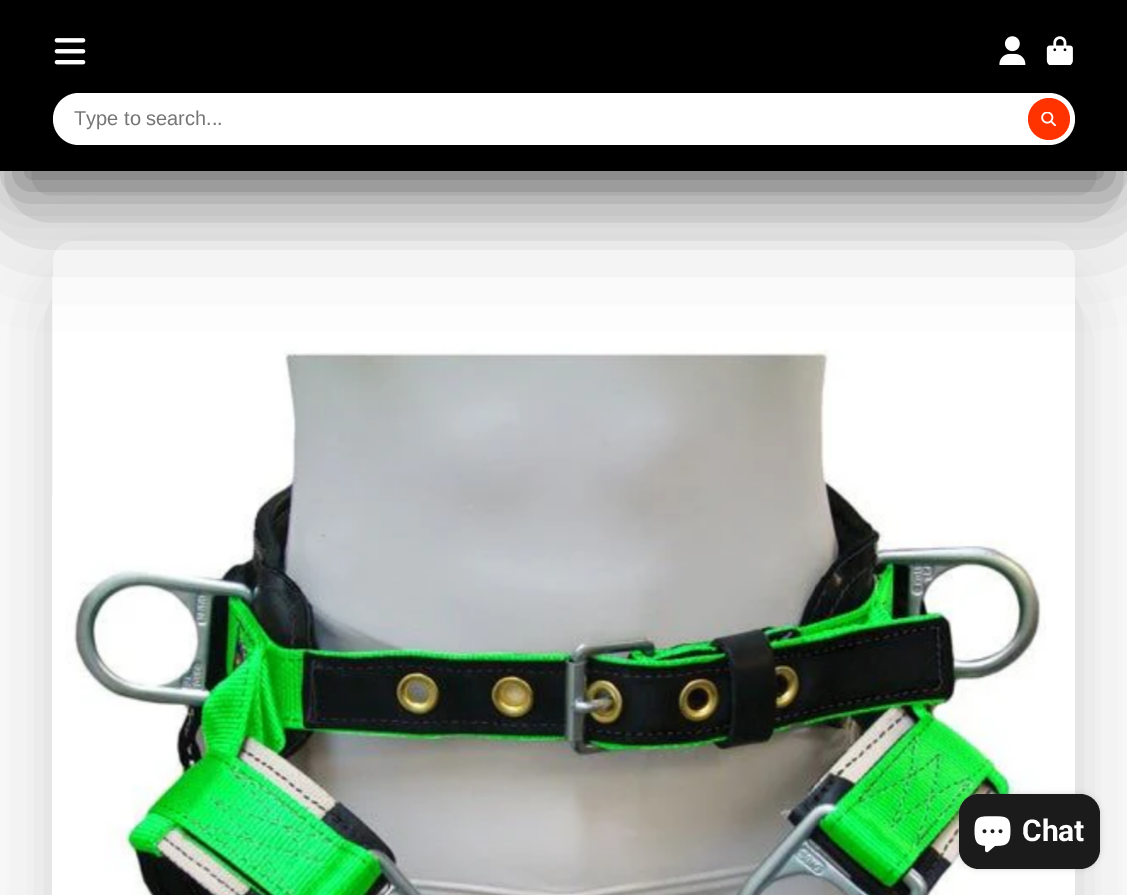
%!PS
<< /PageSize [1127 895] /PageUsesTransparency true >> setpagedevice
/rgb { dup -16 bitshift 255 div exch dup -8 bitshift 255 and 255 div exch 255 and 255 div setrgbcolor } def
/font { [ exch dup neg 0 0 3 -1 roll 0 0 ] selectfont } def
/text { moveto show } def
/alpha { dup .setfillconstantalpha .setstrokeconstantalpha } def
/circle { newpath 0 360 arc closepath } def
/roundrect { 5 dict begin { /r /h /w /y /x } { exch def } forall
  x r add y moveto x w add y 2 copy h add r arct x w add y h add x 1 index r arct
  x y h add x y r arct x y 2 copy exch w add exch r arct closepath end } def
/shadow { 12 dict begin { /a /b /q /h /w /y /x } { exch def } forall gsave /was 0 def
  9 -2 -9 { dup b mul 4 div /e exch def 1 sub .425 mul 2.718 exch exp 1 add a .99 .min exch div /now exch def
    1 1 now sub 1 was sub div sub alpha /was now def
    w h .min e 2 mul add 0 gt { x e sub y e sub w e 2 mul add h e 2 mul add
      q e add b .6 mul add w h .min 2 div e add .min 0 .max roundrect fill } if } for grestore end } def
/picture { 5 dict begin { /h /w /y /x /name } { exch def } forall
  gsave x y translate w h scale
  w h 8 [w 0 0 h 0 0] name (r) file false 3 colorimage grestore end } def
0 .pushpdf14devicefilter
0 895 translate 1 -1 scale
4 setmiterlimit
/s1 { /LiberationSans-Regular 20 font 16#757575 rgb } def
/s2 { /Roboto-Bold 30 font 16#FFFFFF rgb } def
16#F9F9F9 rgb
0 0 1127 895 rectfill
16#000000 rgb
85 308 958 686 0 33 0.3 shadow
75 318 979 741 0 54.5 0.1 shadow
16#FFFFFF rgb
53 241 1022 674 20 roundrect fill
16#000000 rgb
18 50 1092 136 0 24 0.4 shadow
(pic5.raw) 52 276 994 619 picture
18 73 1092 136 0 54.5 0.3 shadow
0 0 1127 171 rectfill
(pic1.raw) 54 38 32 27 picture
(pic2.raw) 999 36 27 29 picture
(pic3.raw) 1046 36 27 29 picture
16#FFFFFF rgb
53 93 1022 52 26 roundrect fill
s1
(Type to search...) 74 125 text
16#FF3300 rgb
1049 119 21 circle fill
(pic4.raw) 1041 112 15 14 picture
16#000000 rgb
959 794 141 75 20 3 0.15 shadow
16#1B1B1B rgb
959 794 141 75 20 roundrect fill
(pic6.raw) 974 816 37 37 picture
s2
(Chat) 1022 841 text
.poppdf14devicefilter showpage
